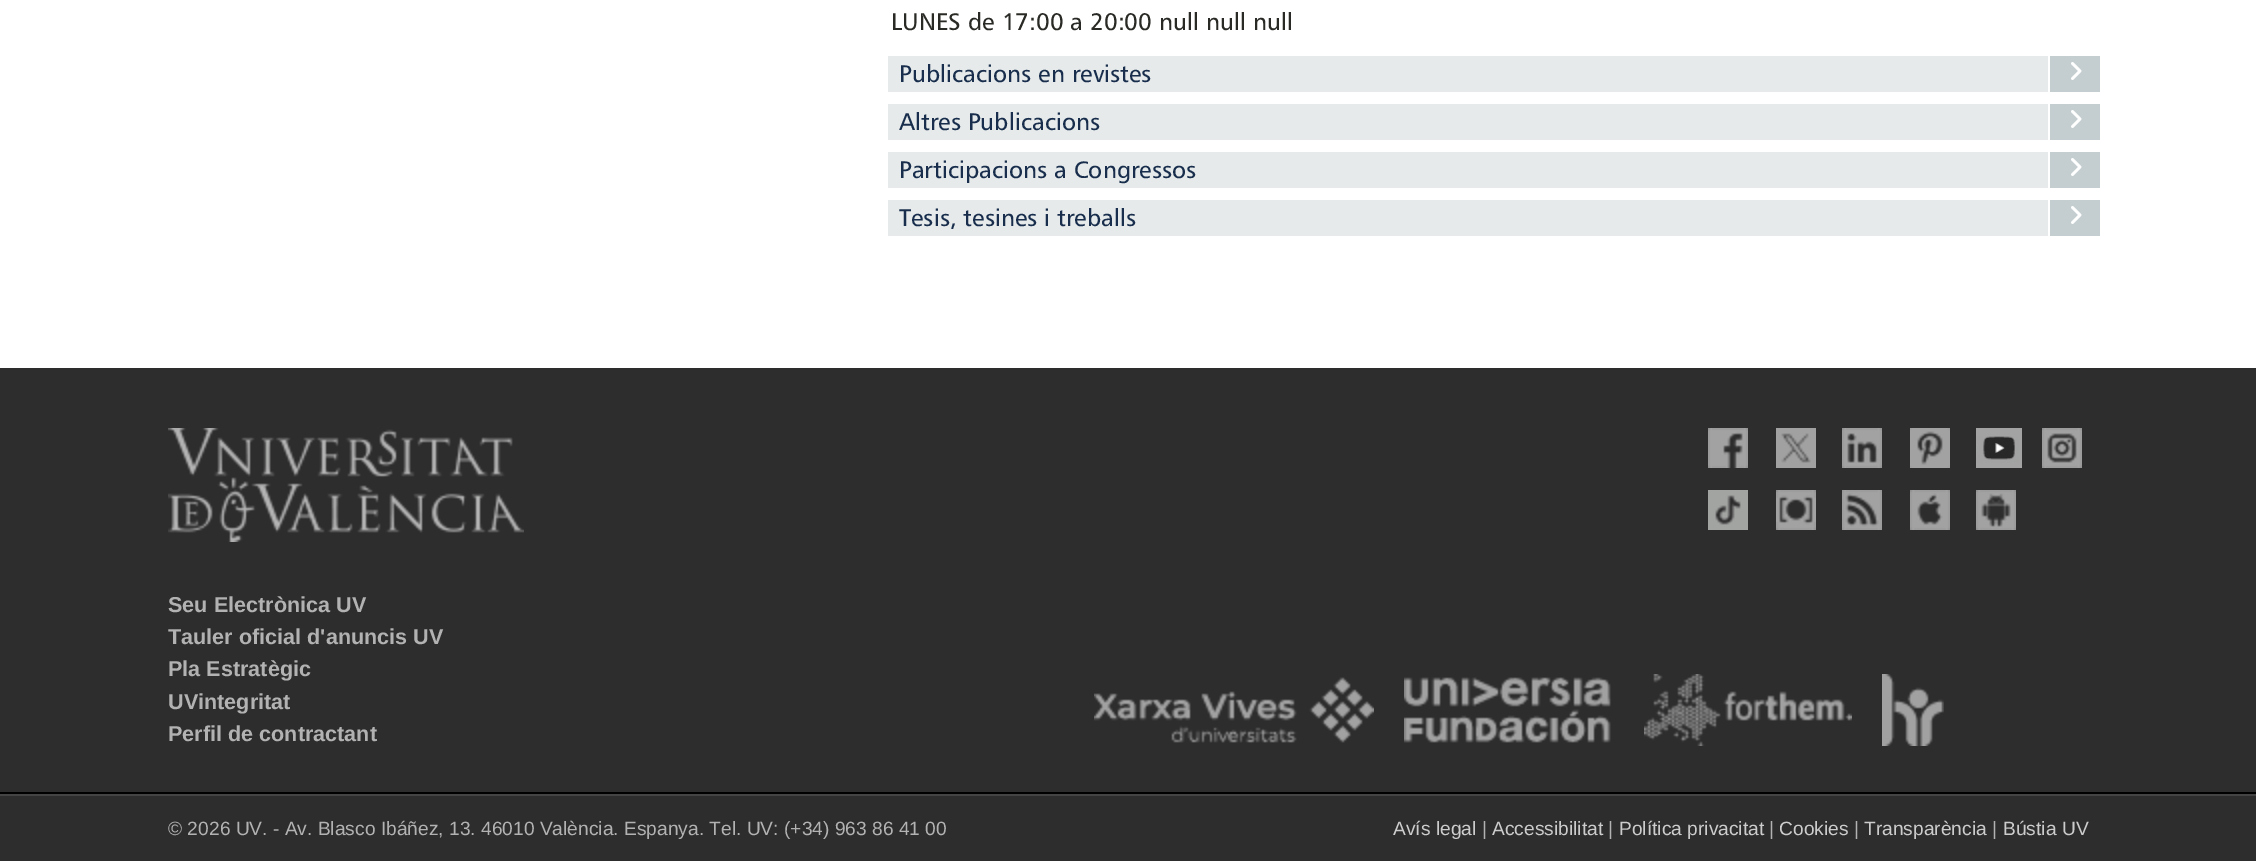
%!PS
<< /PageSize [2256 861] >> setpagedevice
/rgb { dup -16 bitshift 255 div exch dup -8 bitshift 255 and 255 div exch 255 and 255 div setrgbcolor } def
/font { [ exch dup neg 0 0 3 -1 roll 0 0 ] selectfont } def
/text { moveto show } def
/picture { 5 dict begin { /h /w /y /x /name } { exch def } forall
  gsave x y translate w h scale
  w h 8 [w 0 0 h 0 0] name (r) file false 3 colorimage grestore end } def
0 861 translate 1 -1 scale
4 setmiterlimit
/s1 { /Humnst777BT-Regular 24 font 16#292A25 rgb } def
/s2 { /Humnst777BT-Regular 24 font 16#182E4C rgb } def
/s3 { /LiberationSans-Bold 21.6 font 16#B2B2B2 rgb } def
/s4 { /LiberationSans-Regular 19.2 font 16#B2B2B2 rgb } def
/s5 { /LiberationSans-Regular 19.2 font 16#CCCCCC rgb } def
16#FFFFFF rgb
0 0 2256 861 rectfill
s1
(LUNES de 17:00 a 20:00 null null null) 891 30 text
16#E6EAEB rgb
888 56 1160 36 rectfill
s2
(Publicacions en revistes) 899 82 text
16#C4CDD0 rgb
2050 56 50 36 rectfill
(pic1.raw) 2071 62 11 18 picture
16#E6EAEB rgb
888 104 1160 36 rectfill
s2
(Altres Publicacions) 899 130 text
16#C4CDD0 rgb
2050 104 50 36 rectfill
(pic1.raw) 2071 110 11 18 picture
16#E6EAEB rgb
888 152 1160 36 rectfill
s2
(Participacions a Congressos) 899 178 text
16#C4CDD0 rgb
2050 152 50 36 rectfill
(pic1.raw) 2071 158 11 18 picture
16#E6EAEB rgb
888 200 1160 36 rectfill
s2
(Tesis, tesines i treballs) 899 226 text
16#C4CDD0 rgb
2050 200 50 36 rectfill
(pic1.raw) 2071 206 11 18 picture
16#2D2D2D rgb
0 368 2256 493 rectfill
(pic2.raw) 168 428 356 114 picture
(pic3.raw) 1708 428 40 40 picture
(pic4.raw) 1776 428 40 40 picture
(pic5.raw) 1842 428 40 40 picture
(pic6.raw) 1910 428 40 40 picture
(pic7.raw) 1976 428 46 40 picture
(pic8.raw) 2042 428 40 40 picture
(pic9.raw) 1708 490 40 40 picture
(pic10.raw) 1776 490 40 40 picture
(pic11.raw) 1842 490 40 40 picture
(pic12.raw) 1910 490 40 40 picture
(pic13.raw) 1976 490 40 40 picture
s3
(Seu Electrònica UV) 168 612 text
(Tauler oficial d'anuncis UV) 168 644 text
(Pla Estratègic) 168 676 text
(UVintegritat) 168 709 text
(Perfil de contractant) 168 741 text
(pic14.raw) 1094 677 280 66 picture
(pic15.raw) 1404 677 207 66 picture
(pic16.raw) 1644 674 208 72 picture
(pic17.raw) 1882 674 62 72 picture
16#000000 rgb
0 792 2256 2 rectfill
16#444444 rgb
0 794 2256 2 rectfill
s4
(© 2026 UV. - Av. Blasco Ibáñez, 13. 46010 València. Espanya. Tel. UV: \(+34\) 963 86 41 00) 168 835 text
s5
(Avís legal) 1393 835 text
s4
(|) 1482 835 text
s5
(Accessibilitat) 1492 835 text
s4
(|) 1608 835 text
s5
(Política privacitat) 1619 835 text
s4
(|) 1769 835 text
s5
(Cookies) 1779 835 text
s4
(|) 1854 835 text
s5
(Transparència) 1864 835 text
s4
(|) 1992 835 text
s5
(Bústia UV) 2003 835 text
showpage
